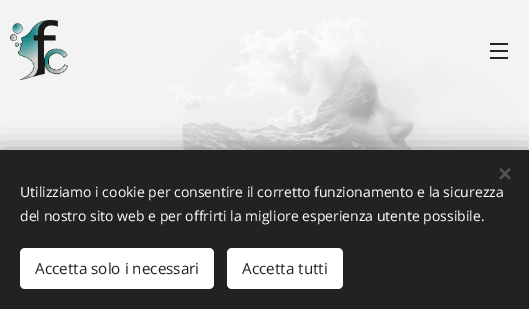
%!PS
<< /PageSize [529 309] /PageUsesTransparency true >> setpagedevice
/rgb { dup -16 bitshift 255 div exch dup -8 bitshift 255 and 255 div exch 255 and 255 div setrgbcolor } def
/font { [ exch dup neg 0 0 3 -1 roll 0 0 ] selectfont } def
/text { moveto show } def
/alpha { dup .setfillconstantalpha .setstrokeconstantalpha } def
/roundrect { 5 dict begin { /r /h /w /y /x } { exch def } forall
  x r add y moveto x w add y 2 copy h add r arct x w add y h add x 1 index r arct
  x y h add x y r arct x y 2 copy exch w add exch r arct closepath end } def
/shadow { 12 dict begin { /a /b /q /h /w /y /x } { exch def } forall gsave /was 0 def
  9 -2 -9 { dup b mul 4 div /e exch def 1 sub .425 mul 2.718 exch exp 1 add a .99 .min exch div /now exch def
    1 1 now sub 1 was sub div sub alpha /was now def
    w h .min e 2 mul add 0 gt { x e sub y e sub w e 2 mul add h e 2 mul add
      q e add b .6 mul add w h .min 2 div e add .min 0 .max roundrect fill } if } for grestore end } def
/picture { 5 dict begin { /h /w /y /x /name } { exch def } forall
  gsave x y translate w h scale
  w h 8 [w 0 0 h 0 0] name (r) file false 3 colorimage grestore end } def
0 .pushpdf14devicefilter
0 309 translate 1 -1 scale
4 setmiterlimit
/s1 { /OpenSans-Regular 14 font 16#FFFFFF rgb } def
/s2 { /OpenSans-Regular 15.25 font 16#222222 rgb } def
16#FFFFFF rgb
0 0 529 309 rectfill
(pic1.raw) 0 0 529 150 picture
(pic2.raw) 10 20 59 60 picture
16#242424 rgb
490 50 18 2 rectfill
490 43 18 2 rectfill
490 57 18 2 rectfill
16#000000 rgb
0 150 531 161 0 12.5 0.33 shadow
16#222222 rgb
0 150 529 159 rectfill
16#555555 rgb
499.5 178 moveto 509 168 lineto 510.5 169.5 lineto 501 179.5 lineto closepath fill
501 168 moveto 510.5 178 lineto 509 179.5 lineto 499.5 169.5 lineto closepath fill
s1
(Utilizziamo i cookie per consentire il corretto funzionamento e la sicurezza) 20 197 text
(del nostro sito web e per offrirti la migliore esperienza utente possibile.) 20 221 text
20 248 194 41 5 roundrect fill
s2
(Accetta solo i necessari) 35 274 text
16#FFFFFF rgb
227 248 116 41 5 roundrect fill
s2
(Accetta tutti) 242 274 text
.poppdf14devicefilter showpage
